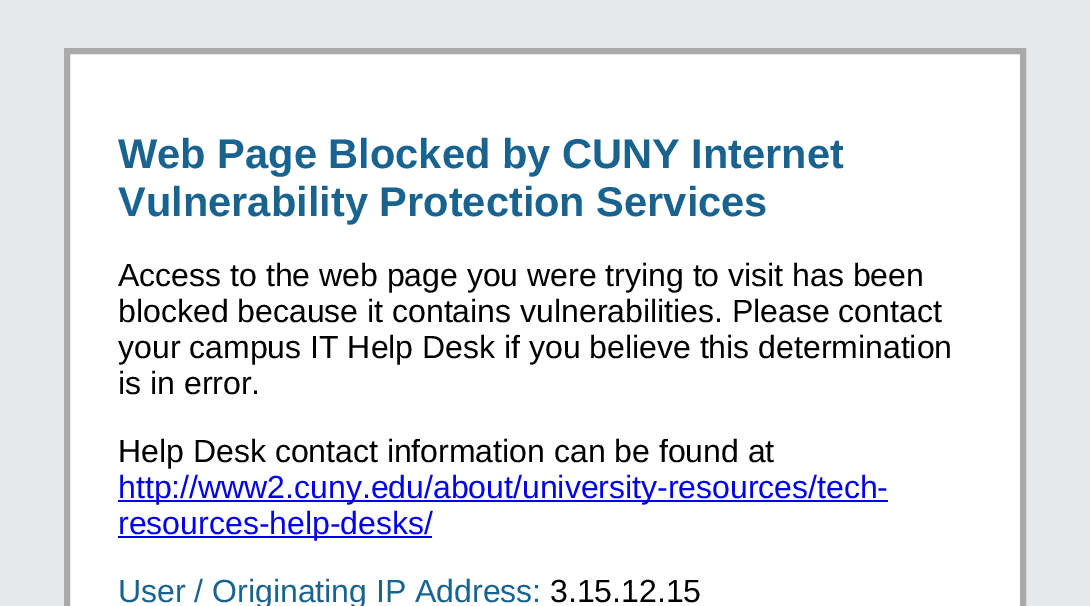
%!PS
<< /PageSize [1090 606] >> setpagedevice
/rgb { dup -16 bitshift 255 div exch dup -8 bitshift 255 and 255 div exch 255 and 255 div setrgbcolor } def
/font { [ exch dup neg 0 0 3 -1 roll 0 0 ] selectfont } def
/text { moveto show } def
0 606 translate 1 -1 scale
4 setmiterlimit
/s1 { /LiberationSans-Bold 41.6 font 16#196390 rgb } def
/s2 { /LiberationSans-Regular 32 font 16#000000 rgb } def
/s3 { /LiberationSans-Regular 32 font 16#0000EE rgb } def
/s4 { /LiberationSans-Regular 32 font 16#196390 rgb } def
16#E7E8E9 rgb
0 0 1090 606 rectfill
16#FFFFFF rgb
67 51 moveto 1023 51 lineto 1023 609 lineto 67 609 lineto closepath gsave fill grestore
16#AAAAAA rgb
6 setlinewidth
stroke
s1
(Web Page Blocked by CUNY Internet) 118 168 text
(Vulnerability Protection Services) 118 216 text
s2
(Access to the web page you were trying to visit has been) 118 286 text
(blocked because it contains vulnerabilities. Please contact) 118 322 text
(your campus IT Help Desk if you believe this determination) 118 358 text
(is in error.) 118 394 text
(Help Desk contact information can be found at) 118 462 text
16#0000EE rgb
118 500 770 2 rectfill
(http://www2.cuny.edu/about/university-resources/tech-) 118 498 text
118 536 314 2 rectfill
(resources-help-desks/) 118 534 text
s4
(User / Originating IP Address:) 118 602 text
s2
(3.15.12.15) 550 602 text
showpage
